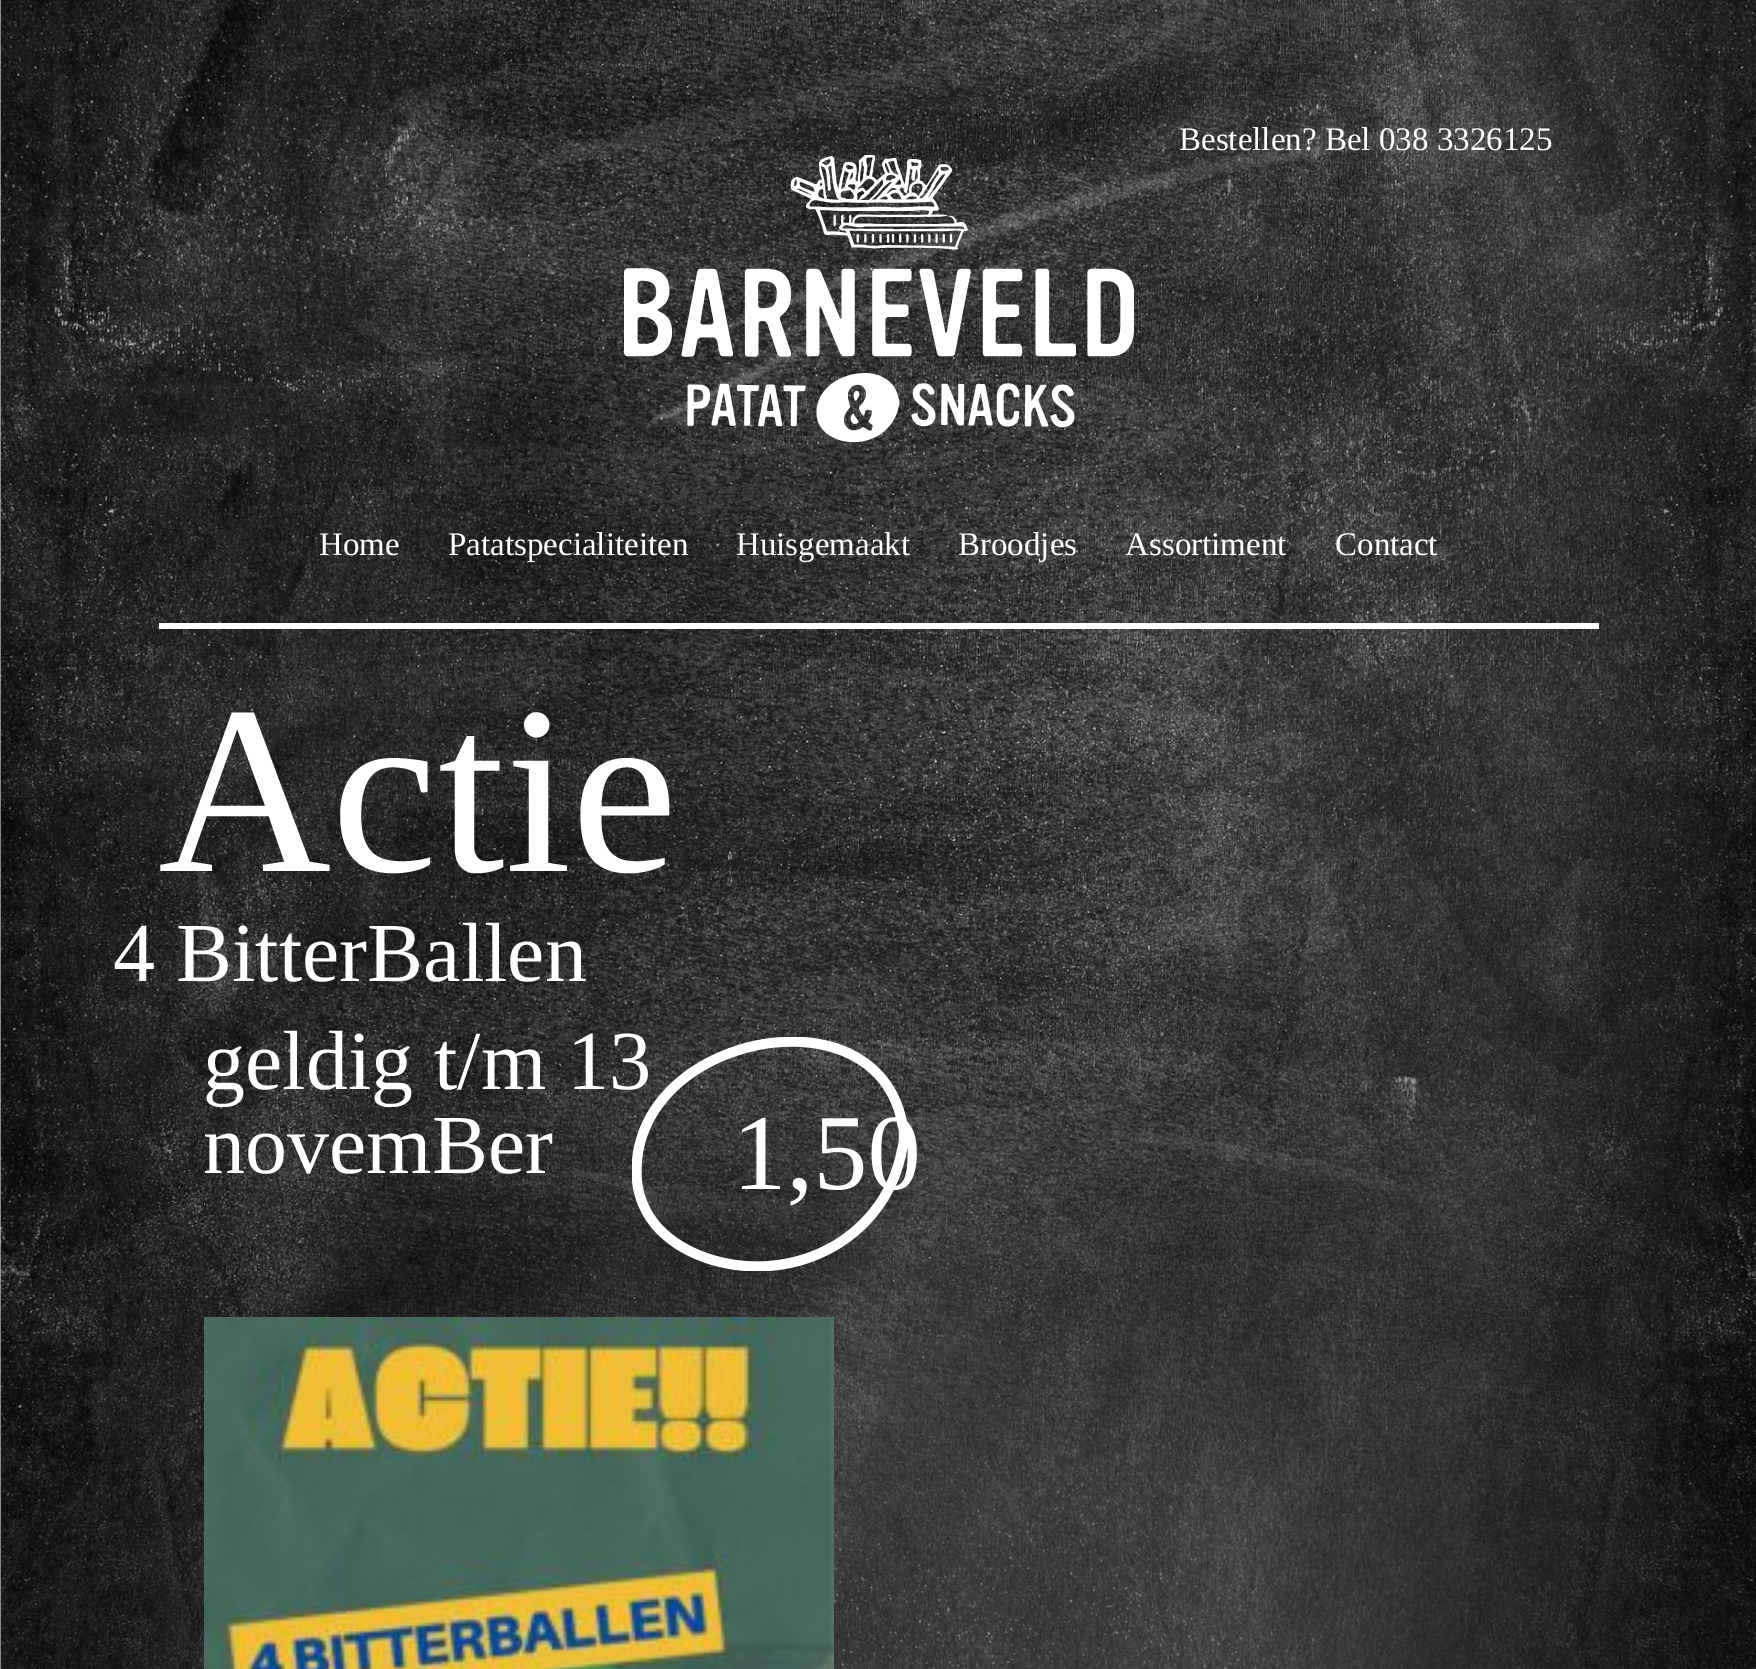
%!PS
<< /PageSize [1756 1669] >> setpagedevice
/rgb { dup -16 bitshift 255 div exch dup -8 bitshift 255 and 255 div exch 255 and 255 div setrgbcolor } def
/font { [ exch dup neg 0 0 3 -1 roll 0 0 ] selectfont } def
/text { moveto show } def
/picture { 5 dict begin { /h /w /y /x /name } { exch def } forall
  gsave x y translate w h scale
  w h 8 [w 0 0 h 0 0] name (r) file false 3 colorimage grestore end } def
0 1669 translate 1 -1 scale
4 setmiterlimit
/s1 { /LiberationSerif-Regular 33 font 16#FFFFFF rgb } def
/s2 { /LiberationSerif-Regular 240 font 16#FFFFFF rgb } def
/s3 { /LiberationSerif-Regular 84 font 16#FFFFFF rgb } def
/s4 { /LiberationSerif-Regular 108 font 16#FFFFFF rgb } def
16#FFFFFF rgb
0 0 1756 1669 rectfill
(pic1.raw) 0 0 1756 1669 picture
s1
(Bestellen? Bel 038 3326125) 1179 150 text
(pic2.raw) 624 155 510 288 picture
(Home) 319 555 text
(Patatspecialiteiten) 448 555 text
(Huisgemaakt) 736 555 text
(Broodjes) 958 555 text
(Assortiment) 1125 555 text
(Contact) 1335 555 text
159 623 1440 6 rectfill
s2
(Actie) 158 871 text
s3
(4 BitterBallen) 113 981 text
(geldig t/m 13) 203 1089 text
(novemBer) 203 1173 text
s4
(1,50) 732 1189 text
(pic3.raw) 632 1037 276 234 picture
(pic4.raw) 204 1317 630 352 picture
showpage
